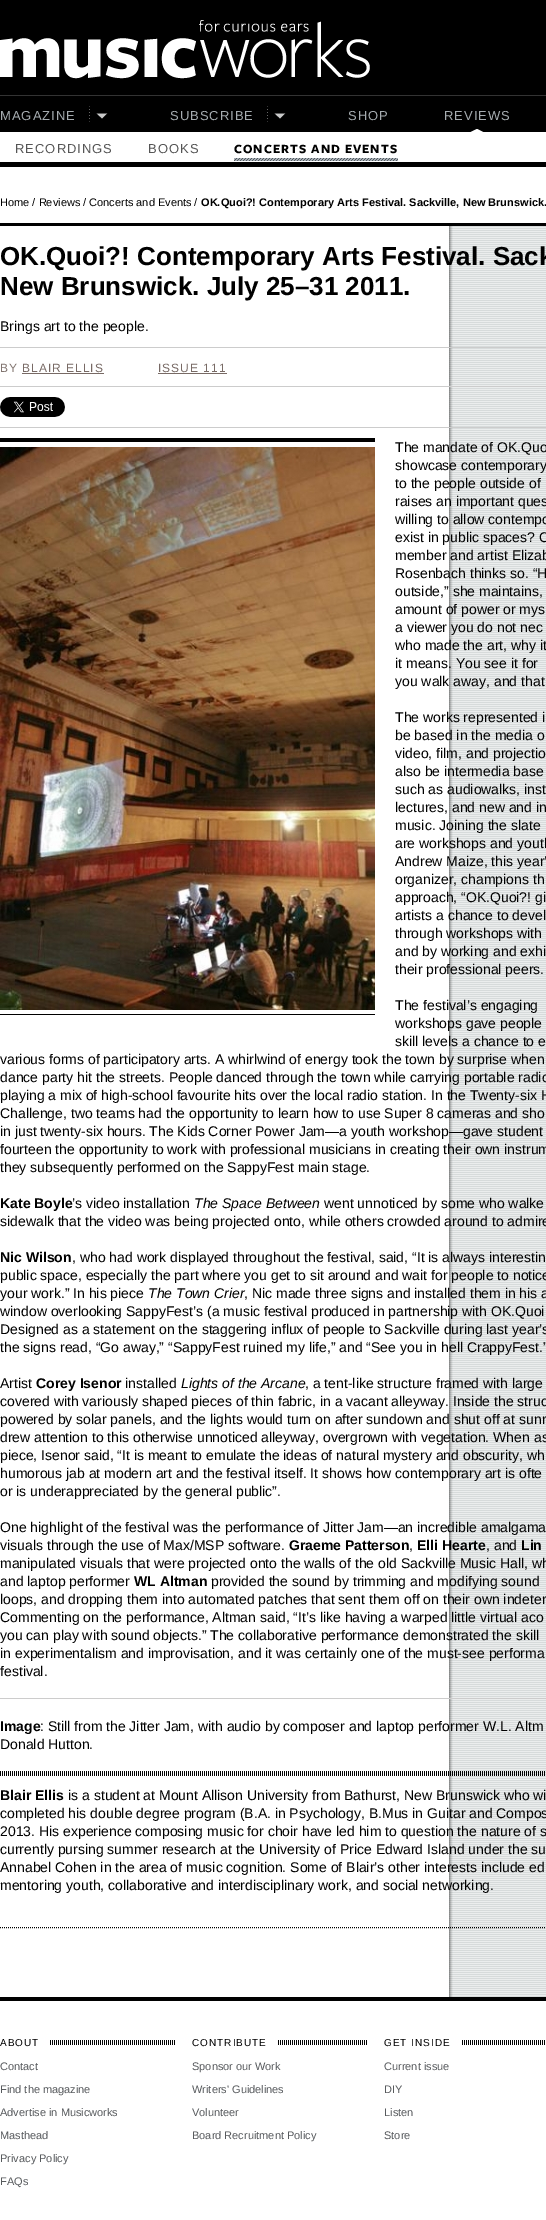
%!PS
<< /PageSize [546 2220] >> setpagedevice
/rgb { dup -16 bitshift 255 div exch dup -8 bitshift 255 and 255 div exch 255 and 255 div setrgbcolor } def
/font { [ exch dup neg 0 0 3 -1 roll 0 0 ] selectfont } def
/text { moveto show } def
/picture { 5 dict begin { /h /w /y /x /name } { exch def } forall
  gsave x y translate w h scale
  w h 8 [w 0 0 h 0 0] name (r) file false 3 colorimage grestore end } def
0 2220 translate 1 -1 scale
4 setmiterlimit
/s1 { /LiberationSans-Regular 11 font 16#000000 rgb } def
/s2 { /LiberationSans-Bold 11 font 16#000000 rgb } def
/s3 { /LiberationSans-Bold 26 font 16#000000 rgb } def
/s4 { /LiberationSans-Regular 14 font 16#000000 rgb } def
/s5 { /LiberationSans-Bold 14 font 16#000000 rgb } def
/s6 { /LiberationSans-Italic 14 font 16#000000 rgb } def
/s7 { /LiberationSans-Regular 11 font 16#575A5D rgb } def
16#000000 rgb
0 0 546 2220 rectfill
16#333333 rgb
0 95 546 1 rectfill
(pic1.raw) 0 20 370 59 picture
/LiberationSans-Regular 13 font
16#A6ACB0 rgb
0 120 moveto 1 0 (MAGAZINE) ashow
(pic2.raw) 89 106 19 16 picture
444 120 moveto 1 0 (REVIEWS) ashow
(pic3.raw) 467 129 20 3 picture
16#FFFFFF rgb
0 132 546 30 rectfill
16#555555 rgb
15 153 moveto 1 0 (RECORDINGS) ashow
148 153 moveto 1 0 (BOOKS) ashow
/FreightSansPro-Bold 13 font
16#000000 rgb
234 153 moveto 1 0 (CONCERTS AND EVENTS) ashow
(pic4.raw) 234 158 164 3 picture
/LiberationSans-Regular 13 font
16#A6ACB0 rgb
170 120 moveto 1 0 (SUBSCRIBE) ashow
(pic2.raw) 267 106 19 16 picture
348 120 moveto 1 0 (SHOP) ashow
16#FFFFFF rgb
0 167 546 1830 rectfill
16#000000 rgb
0 223 546 3 rectfill
s1
(Home / Reviews / Concerts and Events /) 0 206 text
s2
(OK.Quoi?! Contemporary Arts Festival. Sackville, New Brunswick.) 201 206 text
(pic5.raw) 449 226 97 1771 picture
s3
(OK.Quoi?! Contemporary Arts Festival. Sack) 0 265 text
(New Brunswick. July 25–31 2011.) 0 295 text
16#CCCCCC rgb
0 347 546 1 rectfill
s4
(Brings art to the people.) 0 331 text
/LiberationSans-Regular 12 font
16#81746F rgb
0 372 moveto 1 0 (BY) ashow
16#786A65 rgb
22 372 moveto 1 0 (BLAIR ELLIS) ashow
22 373 82 1 rectfill
158 372 moveto 1 0 (ISSUE 111) ashow
158 373 69 1 rectfill
16#CCCCCC rgb
0 386 546 1 rectfill
0 427 546 1 rectfill
(pic6.raw) 0 397 65 20 picture
16#000000 rgb
0 438 375 4 rectfill
0 1014 375 1 rectfill
(pic7.raw) 0 447 375 563 picture
s4
(The mandate of OK.Quo) 395 452 text
(showcase contemporary) 395 470 text
(to the people outside of) 395 488 text
(raises an important ques) 395 506 text
(willing to allow contempo) 395 524 text
(exist in public spaces? C) 395 542 text
(member and artist Elizab) 395 560 text
(Rosenbach thinks so. “H) 395 578 text
(outside,” she maintains,) 395 596 text
(amount of power or mys) 395 614 text
(a viewer you do not nec) 395 632 text
(who made the art, why it) 395 650 text
(it means. You see it for) 395 668 text
(you walk away, and that) 395 686 text
(The works represented i) 395 722 text
(be based in the media o) 395 740 text
(video, film, and projectio) 395 758 text
(also be intermedia base) 395 776 text
(such as audiowalks, inst) 395 794 text
(lectures, and new and in) 395 812 text
(music. Joining the slate) 395 830 text
(are workshops and youth) 395 848 text
(Andrew Maize, this year’) 395 866 text
(organizer, champions th) 395 884 text
(approach, “OK.Quoi?! gi) 395 902 text
(artists a chance to devel) 395 920 text
(through workshops with) 395 938 text
(and by working and exhi) 395 956 text
(their professional peers.) 395 974 text
(The festival’s engaging) 395 1010 text
(workshops gave people) 395 1028 text
(skill levels a chance to e) 395 1046 text
(various forms of participatory arts. A whirlwind of energy took the town by surprise when) 0 1064 text
(dance party hit the streets. People danced through the town while carrying portable radio) 0 1082 text
(playing a mix of high-school favourite hits over the local radio station. In the Twenty-six H) 0 1100 text
(Challenge, two teams had the opportunity to learn how to use Super 8 cameras and sho) 0 1118 text
(in just twenty-six hours. The Kids Corner Power Jam—a youth workshop—gave student) 0 1136 text
(fourteen the opportunity to work with professional musicians in creating their own instrum) 0 1154 text
(they subsequently performed on the SappyFest main stage.) 0 1172 text
s5
(Kate Boyle) 0 1208 text
s4
(’s video installation) 72 1208 text
s6
(The Space Between) 194 1208 text
s4
(went unnoticed by some who walke) 324 1208 text
(sidewalk that the video was being projected onto, while others crowded around to admire) 0 1226 text
s5
(Nic Wilson) 0 1262 text
s4
(, who had work displayed throughout the festival, said, “It is always interestin) 72 1262 text
(public space, especially the part where you get to sit around and wait for people to notice) 0 1280 text
(your work.” In his piece) 0 1298 text
s6
(The Town Crier) 148 1298 text
s4
(, Nic made three signs and installed them in his a) 244 1298 text
(window overlooking SappyFest’s \(a music festival produced in partnership with OK.Quoi) 0 1316 text
(Designed as a statement on the staggering influx of people to Sackville during last year’s) 0 1334 text
(the signs read, “Go away,” “SappyFest ruined my life,” and “See you in hell CrappyFest.”) 0 1352 text
(Artist) 0 1388 text
s5
(Corey Isenor) 36 1388 text
s4
(installed) 125 1388 text
s6
(Lights of the Arcane) 181 1388 text
s4
(, a tent-like structure framed with large) 305 1388 text
(covered with variously shaped pieces of thin fabric, in a vacant alleyway. Inside the struc) 0 1406 text
(powered by solar panels, and the lights would turn on after sundown and shut off at sunr) 0 1424 text
(drew attention to this otherwise unnoticed alleyway, overgrown with vegetation. When as) 0 1442 text
(piece, Isenor said, “It is meant to emulate the ideas of natural mystery and obscurity, wh) 0 1460 text
(humorous jab at modern art and the festival itself. It shows how contemporary art is ofte) 0 1478 text
(or is underappreciated by the general public”.) 0 1496 text
(One highlight of the festival was the performance of Jitter Jam—an incredible amalgama) 0 1532 text
(visuals through the use of Max/MSP software.) 0 1550 text
s5
(Graeme Patterson) 289 1550 text
s4
(,) 409 1550 text
s5
(Elli Hearte) 417 1550 text
s4
(, and) 486 1550 text
s5
(Lin) 521 1550 text
s4
(manipulated visuals that were projected onto the walls of the old Sackville Music Hall, wh) 0 1568 text
(and laptop performer) 0 1586 text
s5
(WL Altman) 134 1586 text
s4
(provided the sound by trimming and modifying sound) 211 1586 text
(loops, and dropping them into automated patches that sent them off on their own indeter) 0 1604 text
(Commenting on the performance, Altman said, “It’s like having a warped little virtual aco) 0 1622 text
(you can play with sound objects.” The collaborative performance demonstrated the skill) 0 1640 text
(in experimentalism and improvisation, and it was certainly one of the must-see performa) 0 1658 text
(festival.) 0 1676 text
16#CCCCCC rgb
0 1698 546 1 rectfill
s5
(Image) 0 1731 text
s4
(: Still from the Jitter Jam, with audio by composer and laptop performer W.L. Altm) 40 1731 text
(Donald Hutton.) 0 1749 text
(pic8.raw) 0 1771 545 5 picture
[1 1] 0 setdash
0 1927.5 moveto 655 1927.5 lineto stroke
s5
(Blair Ellis) 0 1800 text
s4
(is a student at Mount Allison University from Bathurst, New Brunswick who wi) 68 1800 text
(completed his double degree program \(B.A. in Psychology, B.Mus in Guitar and Compos) 0 1818 text
(2013. His experience composing music for choir have led him to question the nature of s) 0 1836 text
(currently pursing summer research at the University of Price Edward Island under the su) 0 1854 text
(Annabel Cohen in the area of music cognition. Some of Blair’s other interests include ed) 0 1872 text
(mentoring youth, collaborative and interdisciplinary work, and social networking.) 0 1890 text
16#FFFFFF rgb
0 2001 546 219 rectfill
(pic9.raw) 50 2040 125 5 picture
/LiberationSans-Regular 10 font
16#000000 rgb
0 2046 moveto 1 0 (ABOUT) ashow
s7
(Contact) 0 2070 text
(Find the magazine) 0 2093 text
(Advertise in Musicworks) 0 2116 text
(Masthead) 0 2139 text
(Privacy Policy) 0 2162 text
(FAQs) 0 2185 text
(pic10.raw) 278 2040 89 5 picture
/LiberationSans-Regular 10 font
16#000000 rgb
192 2046 moveto 1 0 (CONTRIBUTE) ashow
s7
(Sponsor our Work) 192 2070 text
(Writers' Guidelines) 192 2093 text
(Volunteer) 192 2116 text
(Board Recruitment Policy) 192 2139 text
(pic11.raw) 462 2040 83 5 picture
/LiberationSans-Regular 10 font
16#000000 rgb
384 2046 moveto 1 0 (GET INSIDE) ashow
s7
(Current issue) 384 2070 text
(DIY) 384 2093 text
(Listen) 384 2116 text
(Store) 384 2139 text
showpage
